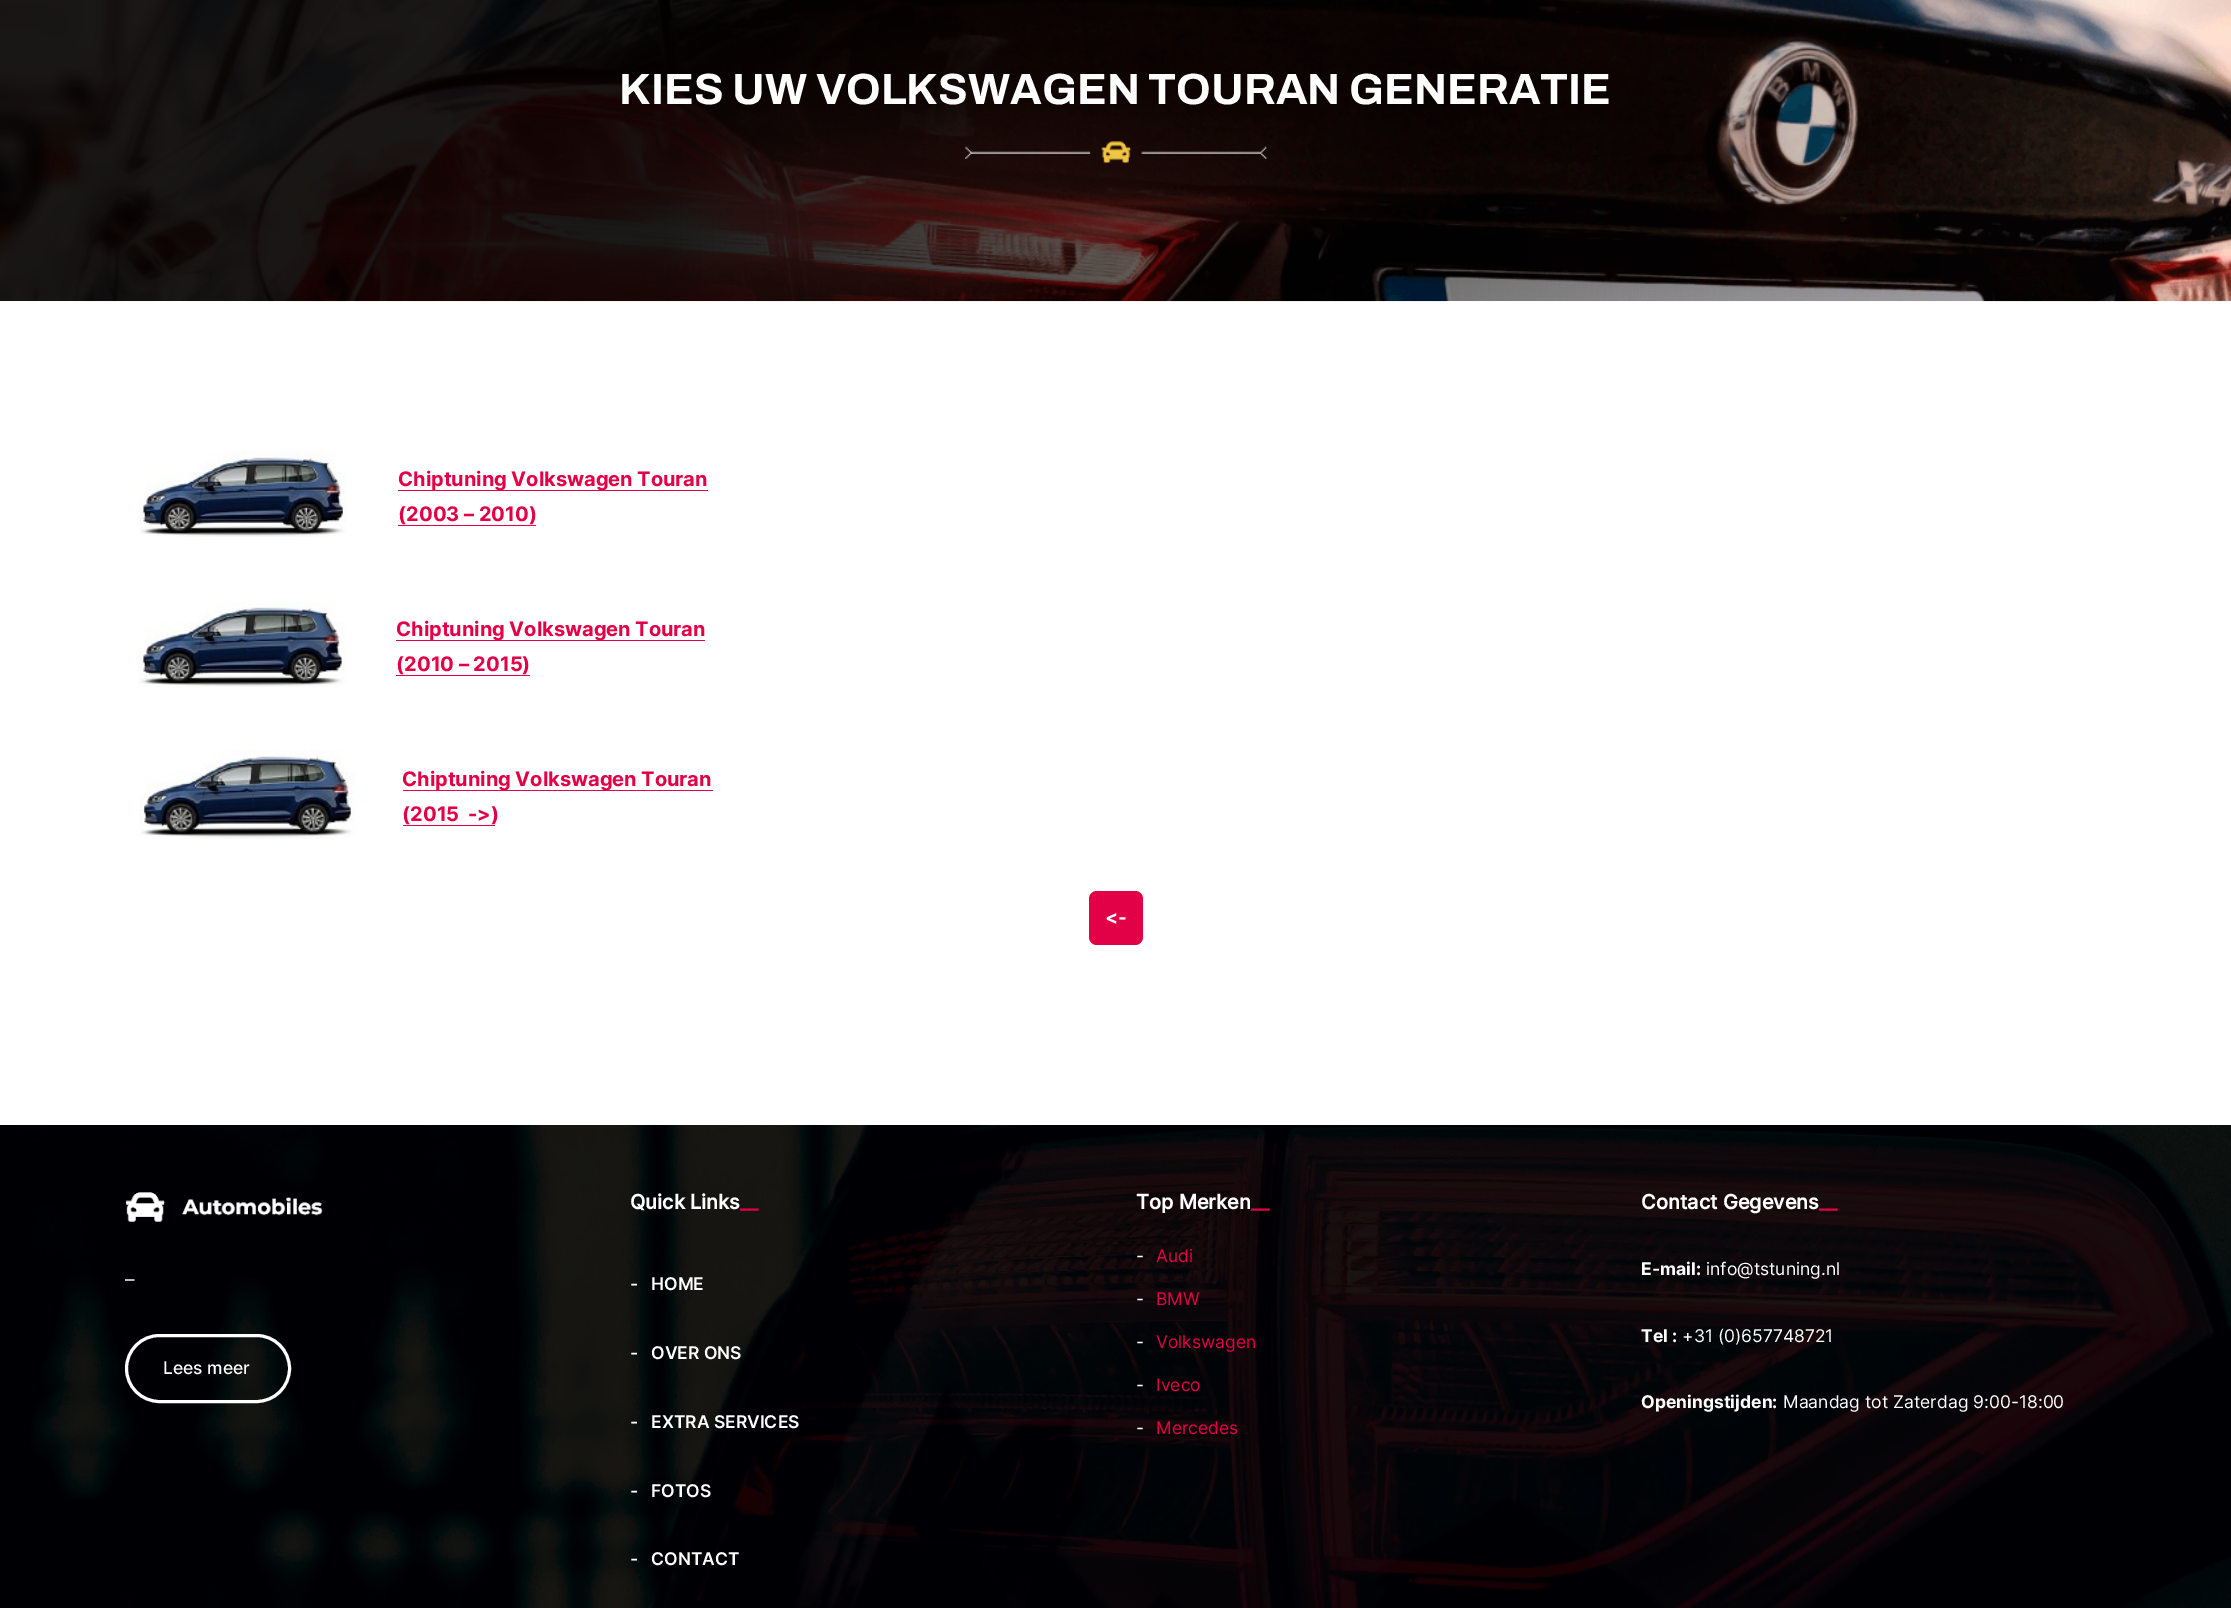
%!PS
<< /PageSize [2231 1608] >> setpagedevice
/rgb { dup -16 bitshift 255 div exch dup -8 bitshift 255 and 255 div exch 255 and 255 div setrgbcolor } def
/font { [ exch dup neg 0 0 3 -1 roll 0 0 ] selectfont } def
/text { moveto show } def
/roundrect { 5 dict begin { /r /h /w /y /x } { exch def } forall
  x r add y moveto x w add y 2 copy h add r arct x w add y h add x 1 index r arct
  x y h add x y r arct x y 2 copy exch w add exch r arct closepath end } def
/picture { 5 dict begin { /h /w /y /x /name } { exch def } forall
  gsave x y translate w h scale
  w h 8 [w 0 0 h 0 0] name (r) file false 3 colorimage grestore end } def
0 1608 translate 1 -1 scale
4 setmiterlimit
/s1 { /Archivo-Bold 43.75 font 16#FFFFFF rgb } def
/s2 { /Inter-Bold 20 font 16#E20046 rgb } def
/s3 { /Inter-Bold 19 font 16#FFFFFF rgb } def
/s4 { /Inter-Regular 19 font 16#FFFFFF rgb } def
/s5 { /Inter-Medium 17.5 font 16#FFFFFF rgb } def
/s6 { /Inter-BoldItalic 20 font 16#FFFFFF rgb } def
/s7 { /Inter-BoldItalic 20 font 16#E20046 rgb } def
/s8 { /Inter-SemiBold 17.5 font 16#FFFFFF rgb } def
/s9 { /Inter-Regular 17.5 font 16#FFFFFF rgb } def
/s10 { /Inter-Regular 17.5 font 16#E20046 rgb } def
/s11 { /Inter-Bold 17.5 font 16#FFFFFF rgb } def
16#FFFFFF rgb
0 0 2231 1608 rectfill
(pic1.raw) 0 0 2231 302 picture
s1
(KIES UW VOLKSWAGEN TOURAN GENERATIE) 619 104 text
(pic2.raw) 965 141 303 22 picture
(pic3.raw) 139 451 208 86 picture
16#E20046 rgb
398 490 310 1 rectfill
s2
(Chiptuning Volkswagen Touran) 398 486 text
(\(2003 – 2010\)) 398 521 text
398 525 138 1 rectfill
(pic4.raw) 138 601 208 86 picture
396 640 309 1 rectfill
(Chiptuning Volkswagen Touran) 396 636 text
(\(2010 – 2015\)) 396 671 text
396 675 134 1 rectfill
(pic5.raw) 139 750 217 89 picture
403 790 310 1 rectfill
(Chiptuning Volkswagen Touran) 402 786 text
402 821 moveto 4 0 32 (\(2015 ->\)) widthshow
403 825 92 1 rectfill
1089 891 54 54 8 roundrect fill
s3
(<-) 1105 924 text
(pic6.raw) 0 1125 2231 483 picture
(pic7.raw) 126 1192 197 30 picture
s4
(–) 125 1286 text
3 setlinewidth
126.5 1335.5 163 66 33 roundrect stroke
s5
(Lees meer) 163 1374 text
s6
(Quick Links) 630 1209 text
s7
(__) 740 1209 text
s8
(-) 630 1290 text
(HOME) 651 1290 text
(-) 630 1359 text
(OVER ONS) 651 1359 text
(-) 630 1428 text
(EXTRA SERVICES) 651 1428 text
(-) 630 1497 text
(FOTOS) 651 1497 text
(-) 630 1565 text
(CONTACT) 651 1565 text
s6
(Top Merken) 1136 1209 text
s7
(__) 1251 1209 text
s9
(-) 1136 1262 text
s10
(Audi) 1156 1262 text
s9
(-) 1136 1305 text
s10
(BMW) 1156 1305 text
s9
(-) 1136 1348 text
s10
(Volkswagen) 1156 1348 text
s9
(-) 1136 1391 text
s10
(Iveco) 1156 1391 text
s9
(-) 1136 1434 text
s10
(Mercedes) 1156 1434 text
s6
(Contact Gegevens) 1641 1209 text
s7
(__) 1819 1209 text
s11
(E-mail:) 1641 1275 text
s9
(info@tstuning.nl) 1706 1275 text
s11
(Tel :) 1641 1342 text
s9
(+31 \(0\)657748721) 1682 1342 text
s11
(Openingstijden:) 1641 1408 text
s9
(Maandag tot Zaterdag 9:00-18:00) 1783 1408 text
showpage
